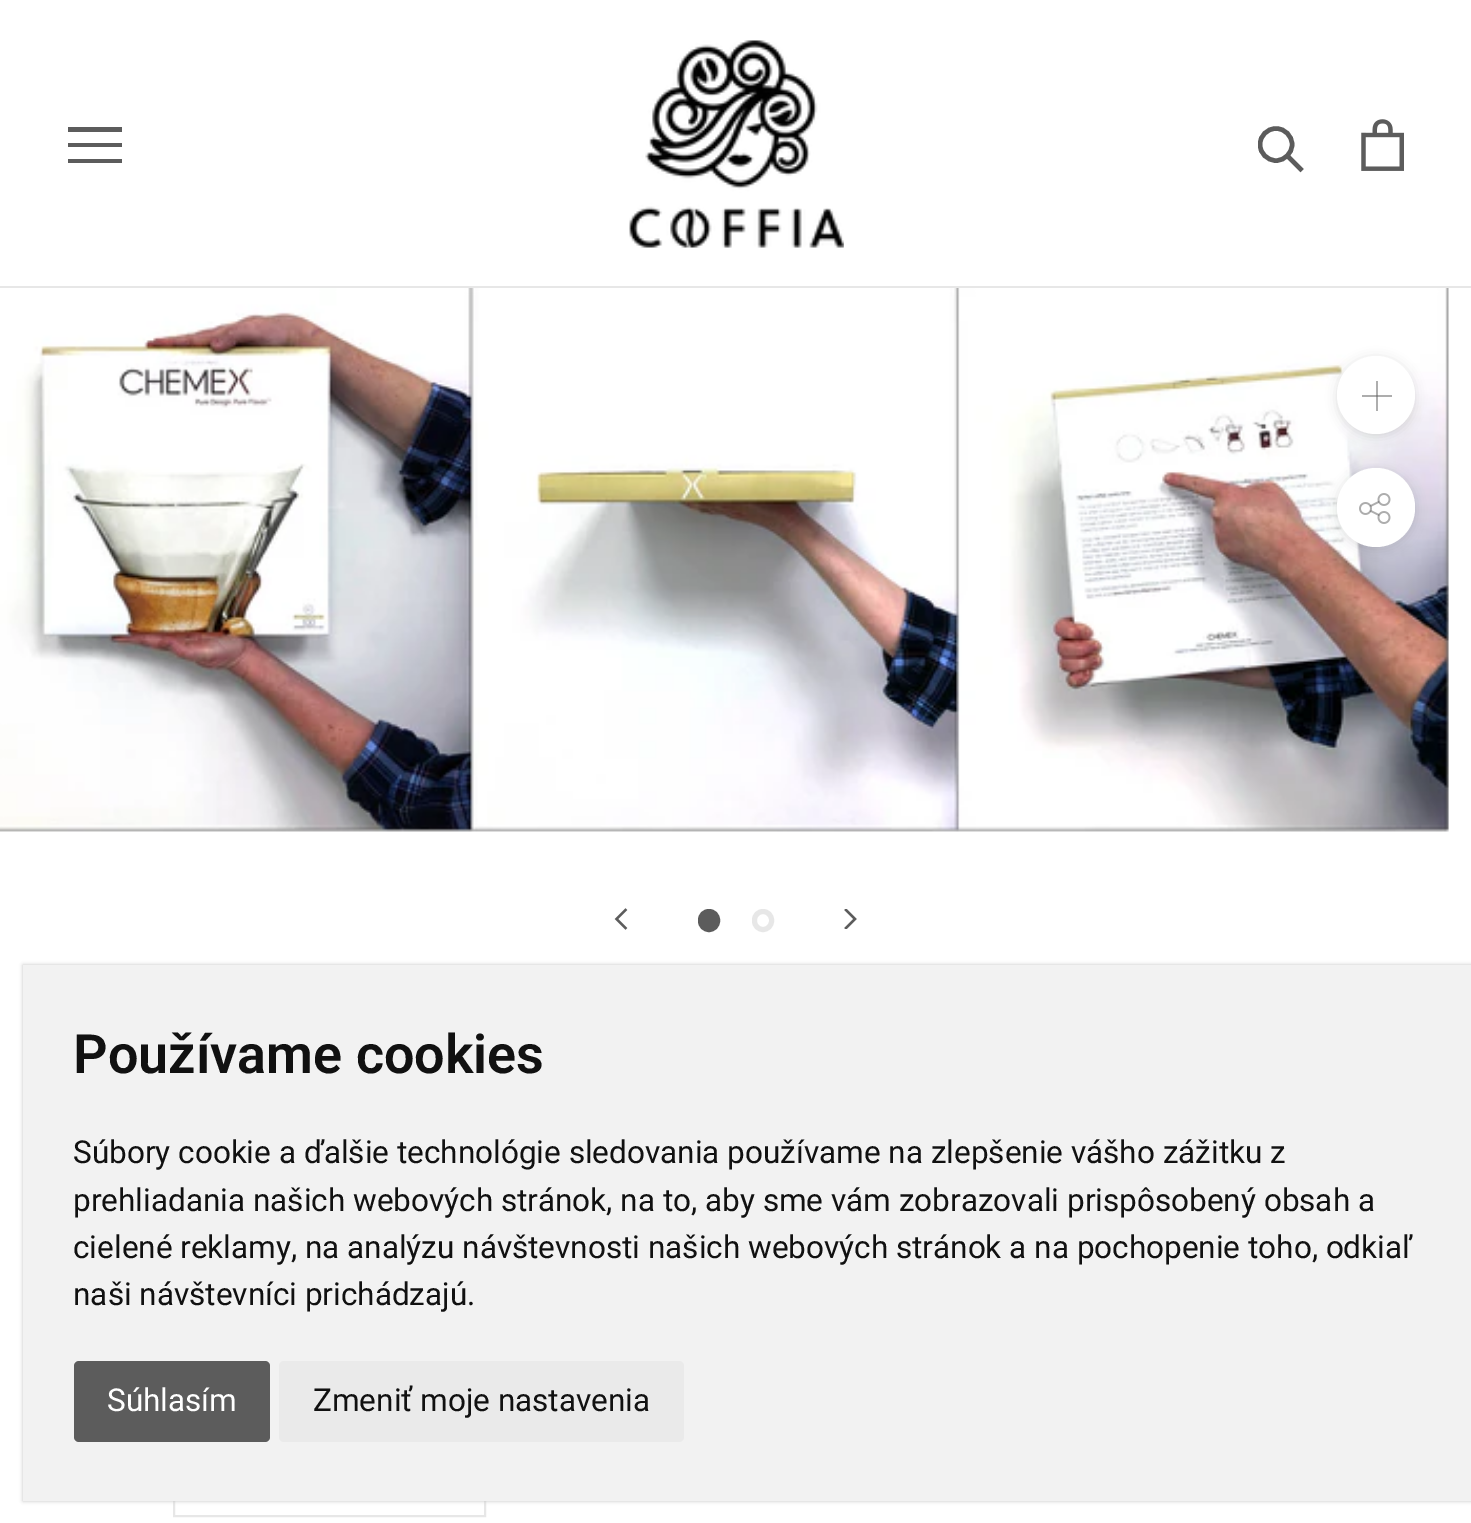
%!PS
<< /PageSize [1471 1523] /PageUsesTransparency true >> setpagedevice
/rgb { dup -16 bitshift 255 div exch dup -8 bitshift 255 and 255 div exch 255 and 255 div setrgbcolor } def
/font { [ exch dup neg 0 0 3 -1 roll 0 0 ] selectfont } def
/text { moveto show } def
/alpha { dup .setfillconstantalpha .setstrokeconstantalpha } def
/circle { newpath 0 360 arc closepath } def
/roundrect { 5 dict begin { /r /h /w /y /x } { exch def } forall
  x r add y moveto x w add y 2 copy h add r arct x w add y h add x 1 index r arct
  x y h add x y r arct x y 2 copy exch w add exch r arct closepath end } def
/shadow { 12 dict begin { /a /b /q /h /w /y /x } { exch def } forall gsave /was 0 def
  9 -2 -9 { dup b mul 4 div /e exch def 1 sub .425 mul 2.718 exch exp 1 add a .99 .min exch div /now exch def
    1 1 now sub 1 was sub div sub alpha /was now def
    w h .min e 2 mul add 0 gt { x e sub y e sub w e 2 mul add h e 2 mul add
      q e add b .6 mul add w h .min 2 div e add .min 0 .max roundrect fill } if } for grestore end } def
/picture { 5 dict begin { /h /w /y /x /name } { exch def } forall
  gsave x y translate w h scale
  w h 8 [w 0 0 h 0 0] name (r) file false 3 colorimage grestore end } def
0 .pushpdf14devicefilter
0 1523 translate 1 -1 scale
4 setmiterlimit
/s1 { /Roboto-SemiBold 54 font 16#111111 rgb } def
/s2 { /Roboto-Regular 31.5 font 16#111111 rgb } def
/s3 { /Roboto-Regular 31.5 font 16#FFFFFF rgb } def
16#FFFFFF rgb
0 0 1471 1523 rectfill
16#E7E7E7 rgb
0 286 1471 2 rectfill
16#5C5C5C rgb
68 163 moveto 68 159 lineto 122 159 lineto 122 163 lineto closepath 68 143 moveto 122 143 lineto 122 147 lineto 68 147 lineto closepath 68 127 moveto 122 127 lineto 122 132 lineto 68 132 lineto closepath fill
(pic1.raw) 629 40 215 208 picture
4.5 setlinewidth
2 setlinecap
1300.5 169 moveto 1287.5 156 lineto stroke
gsave
1258 126 47 47 rectclip
0 setlinecap
1276 144.5 16 circle stroke
grestore
(pic2.raw) 1361 119 43 52 picture
(pic3.raw) 0 288 1449 544 picture
16#363636 rgb
1337 358 78 79 39 5.5 0.15 shadow
16#FFFFFF rgb
1376 395 39 circle fill
16#AEAEAE rgb
1376 381 2 30 rectfill
0.5 alpha
16#5C5C5C rgb
1362 395 30 2 rectfill
1 alpha
16#363636 rgb
1337 470 78 79 39 5.5 0.15 shadow
16#FFFFFF rgb
1337 468 78 79 39 roundrect fill
(pic4.raw) 1359 493 32 31 picture
16#5C5C5C rgb
2.2 setlinewidth
625.5 928 moveto 616.5 919 lineto 625.5 910 lineto stroke
700.5 911.5 17 18 8.5 roundrect gsave fill grestore
5 setlinewidth
0 setlinecap
stroke
16#E7E7E7 rgb
754.5 911.5 17 18 8.5 roundrect stroke
gsave
844 909 13 20 rectclip
16#5C5C5C rgb
2.2 setlinewidth
2 setlinecap
846 928 moveto 855 919 lineto 846 910 lineto stroke
grestore
2 setlinewidth
174 1414 311 102 rectstroke
16#C0C0C0 rgb
23 965 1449 536 0 2 1 shadow
16#F2F2F2 rgb
23 965 1448 536 rectfill
s1
(Používame cookies) 73 1073 text
s2
(Súbory cookie a ďalšie technológie sledovania používame na zlepšenie vášho zážitku z) 73 1163 text
(prehliadania našich webových stránok, na to, aby sme vám zobrazovali prispôsobený obsah a) 73 1211 text
(cielené reklamy, na analýzu návštevnosti našich webových stránok a na pochopenie toho, odkiaľ) 73 1258 text
(naši návštevníci prichádzajú.) 73 1305 text
16#5C5C5C rgb
74 1361 196 81 5 roundrect fill
s3
(Súhlasím) 107 1411 text
16#EAEAEA rgb
279 1361 405 81 5 roundrect fill
s2
(Zmeniť moje nastavenia) 313 1411 text
.poppdf14devicefilter showpage
